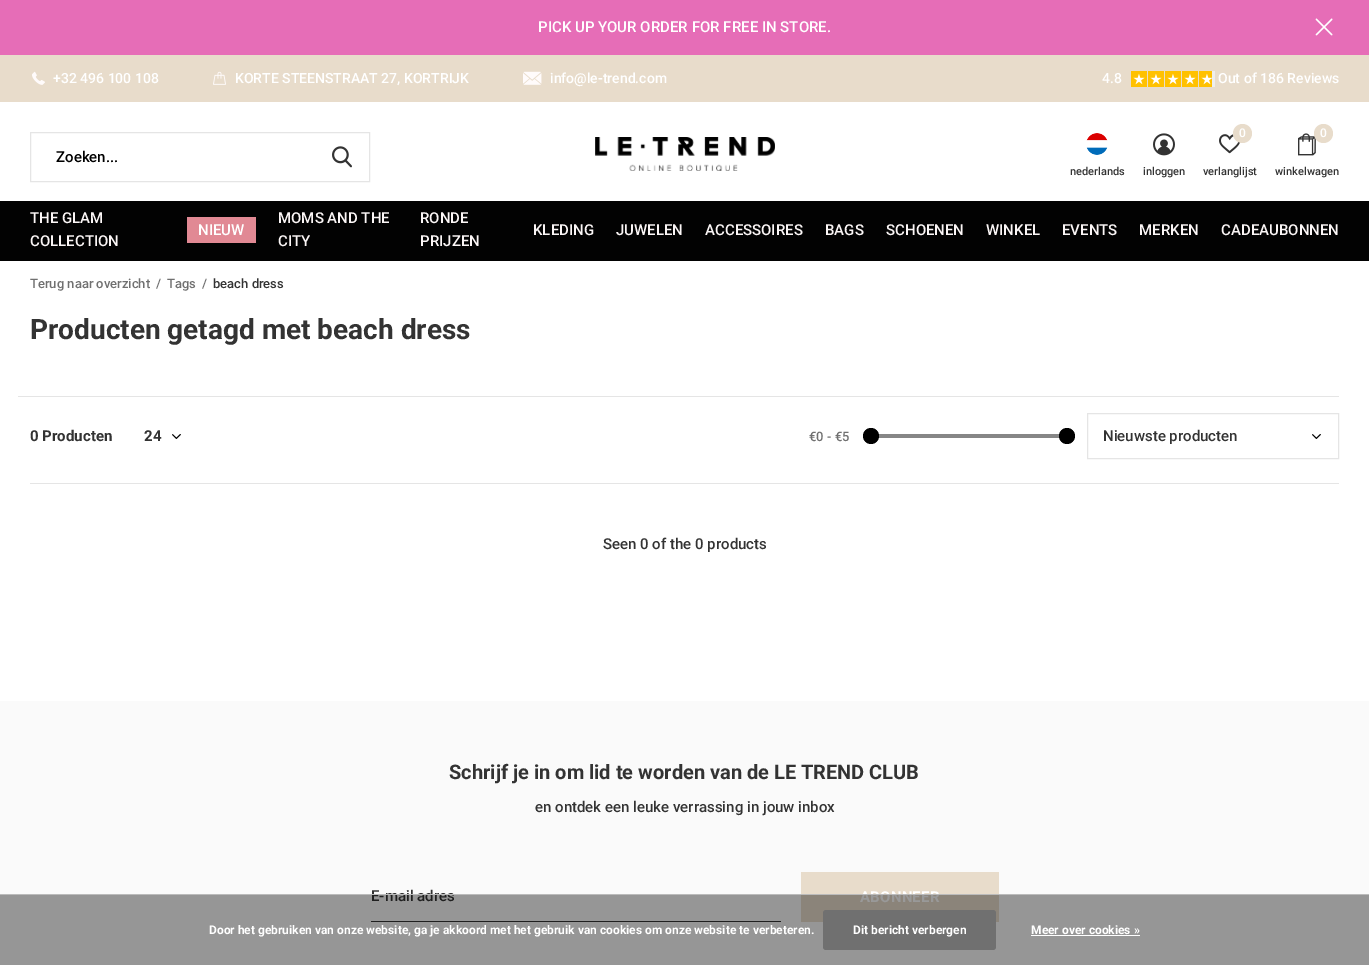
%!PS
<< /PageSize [1369 965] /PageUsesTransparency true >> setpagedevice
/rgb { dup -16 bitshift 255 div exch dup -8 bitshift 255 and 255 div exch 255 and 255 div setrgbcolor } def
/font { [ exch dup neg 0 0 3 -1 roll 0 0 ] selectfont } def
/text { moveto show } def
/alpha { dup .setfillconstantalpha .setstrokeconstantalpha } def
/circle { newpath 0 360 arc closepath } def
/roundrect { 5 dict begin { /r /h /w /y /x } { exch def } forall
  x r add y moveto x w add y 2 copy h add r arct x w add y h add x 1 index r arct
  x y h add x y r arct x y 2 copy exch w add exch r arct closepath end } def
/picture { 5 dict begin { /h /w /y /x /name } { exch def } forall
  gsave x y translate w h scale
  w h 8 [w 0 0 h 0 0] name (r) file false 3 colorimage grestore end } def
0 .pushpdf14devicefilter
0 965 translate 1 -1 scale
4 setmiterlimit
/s1 { /Roboto-Medium 15 font 16#FFFFFF rgb } def
/s2 { /Roboto-Medium 14 font 16#FFFFFF rgb } def
/s3 { /Roboto-Medium 11 font 16#333333 rgb } def
/s4 { /Roboto-Medium 12 font 16#FFFFFF rgb } def
/s5 { /Roboto-Medium 15 font 16#FBF6F6 rgb } def
/s6 { /Roboto-Medium 15 font 16#000000 rgb } def
/s7 { /Roboto-Medium 13 font 16#707070 rgb } def
/s8 { /Roboto-Medium 13 font 16#333333 rgb } def
/s9 { /Roboto-Bold 28 font 16#333333 rgb } def
/s10 { /Roboto-Bold 15 font 16#333333 rgb } def
/s11 { /Roboto-Medium 15 font 16#333333 rgb } def
/s12 { /Roboto-Bold 20 font 16#333333 rgb } def
/s13 { /Roboto-Bold 12 font 16#FFFFFF rgb } def
16#FFFFFF rgb
0 0 1369 965 rectfill
16#E66DB7 rgb
0 0 1369 55 rectfill
s1
(PICK UP YOUR ORDER FOR FREE IN STORE.) 538 32 text
(pic1.raw) 1315 18 18 18 picture
16#E8DCCB rgb
0 55 1369 47 rectfill
(pic2.raw) 32 71 13 14 picture
s2
(+32 496 100 108) 53 83 text
(pic3.raw) 213 71 13 14 picture
(KORTE STEENSTRAAT 27, KORTRIJK) 235 83 text
(pic4.raw) 523 71 19 14 picture
(info@le-trend.com) 550 83 text
(4.8) 1102 83 text
(pic5.raw) 1131 71 16 16 picture
(pic5.raw) 1148 71 16 16 picture
(pic5.raw) 1165 71 16 16 picture
(pic5.raw) 1182 71 16 16 picture
(pic6.raw) 1199 71 13 16 picture
(pic7.raw) 1212 71 3 16 picture
(Out of 186 Reviews) 1218 83 text
(pic8.raw) 1086 133 22 22 picture
s3
(nederlands) 1070 175 text
(pic9.raw) 1153 133 22 23 picture
(inloggen) 1143 175 text
(pic10.raw) 1219 134 21 20 picture
16#E8DCCB rgb
1242.5 133.5 9.5 circle fill
s4
(0) 1239 137 text
s3
(verlanglijst) 1203 175 text
(pic11.raw) 1298 133 18 23 picture
16#E8DCCB rgb
1323.5 133.5 9.5 circle fill
s4
(0) 1320 137 text
s3
(winkelwagen) 1275 175 text
16#020202 rgb
0 201 1369 60 rectfill
s5
(THE GLAM) 30 223 text
(COLLECTION) 30 246 text
16#E18994 rgb
187 217 69 26 rectfill
s1
(NIEUW) 198 235 text
s5
(MOMS AND THE) 278 223 text
(CITY) 278 246 text
(RONDE) 420 223 text
(PRIJZEN) 420 246 text
(KLEDING) 533 235 text
(JUWELEN) 616 235 text
(ACCESSOIRES) 705 235 text
(BAGS) 825 235 text
(SCHOENEN) 886 235 text
(WINKEL) 986 235 text
(EVENTS) 1062 235 text
(MERKEN) 1139 235 text
(CADEAUBONNEN) 1221 235 text
16#E5E5E5 rgb
30.5 132.5 339 49 rectstroke
s6
(Zoeken...) 56 162 text
(pic12.raw) 332 146 20 22 picture
(pic13.raw) 595 137 180 34 picture
s7
(Terug naar overzicht) 30 288 text
(/) 156 288 text
(Tags) 167 288 text
(/) 202 288 text
s8
(beach dress) 213 288 text
s9
(Producten getagd met beach dress) 30 339 text
16#E5E5E5 rgb
18 396 1321 1 rectfill
s10
(0 Producten) 30 441 text
(pic14.raw) 172 434 9 5 picture
(24) 144 441 text
s7
(€0 - €5) 809 441 text
16#868686 rgb
871 434 196 4 rectfill
16#000000 rgb
871 436 8 circle fill
1067 436 8 circle fill
(pic14.raw) 1312 434 9 5 picture
16#E5E5E5 rgb
1087.5 413.5 251 45 rectstroke
s11
(Nieuwste producten) 1103 441 text
16#E5E5E5 rgb
30 483 1309 1 rectfill
s11
(Seen 0 of the 0 products) 603 549 text
16#FAFAFA rgb
0 701 1369 264 rectfill
s12
(Schrijf je in om lid te worden van de LE TREND CLUB) 449 779 text
s11
(en ontdek een leuke verrassing in jouw inbox) 535 812 text
371 921 410 1 rectfill
(E-mail adres) 371 901 text
16#E8DCCB rgb
801 872 198 50 rectfill
/Roboto-Bold 15 font
16#FFFFFF rgb
860 902 moveto 0.25 0 (ABONNEER) ashow
0.4 alpha
16#000000 rgb
0 895 1369 70 rectfill
1 alpha
16#BBBBBB rgb
0 894 1369 1 rectfill
s13
(Door het gebruiken van onze website, ga je akkoord met het gebruik van cookies om onze website te verbeteren.) 209 934 text
16#707070 rgb
823 910 173 40 3 roundrect fill
s13
(Dit bericht verbergen) 853 934 text
(Meer over cookies ») 1031 934 text
1031 935 109 1 rectfill
.poppdf14devicefilter showpage
